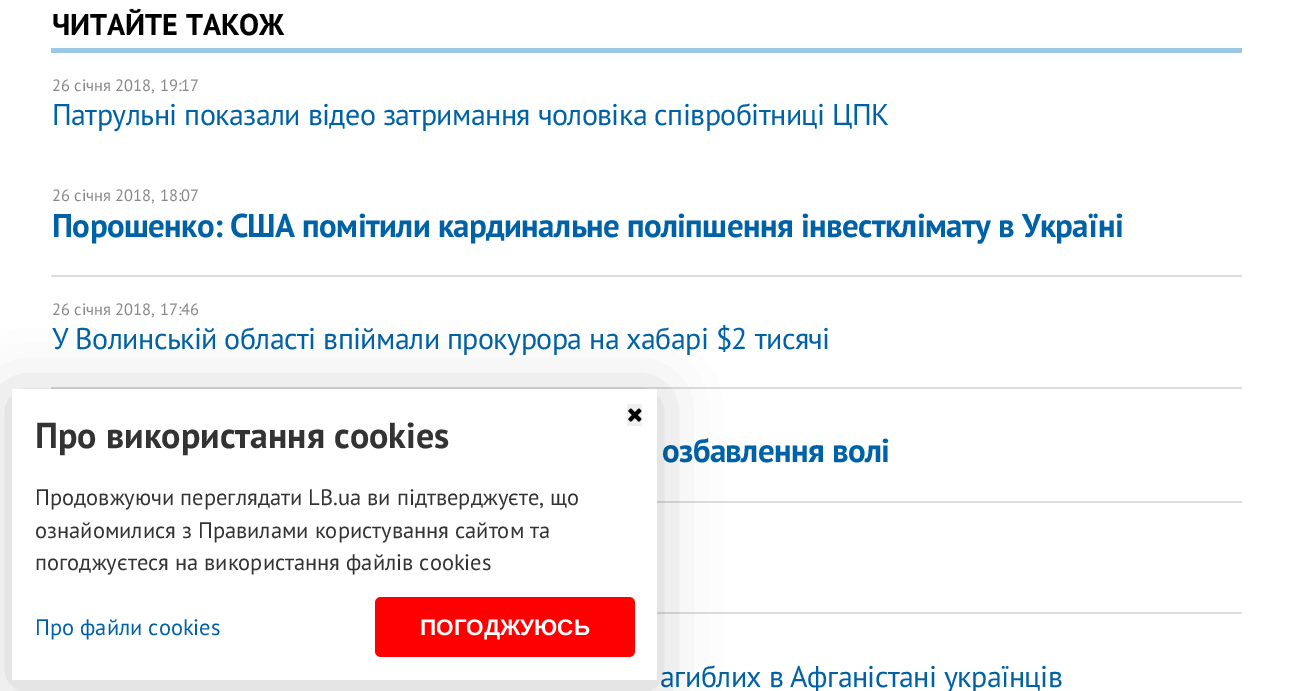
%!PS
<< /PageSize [1293 691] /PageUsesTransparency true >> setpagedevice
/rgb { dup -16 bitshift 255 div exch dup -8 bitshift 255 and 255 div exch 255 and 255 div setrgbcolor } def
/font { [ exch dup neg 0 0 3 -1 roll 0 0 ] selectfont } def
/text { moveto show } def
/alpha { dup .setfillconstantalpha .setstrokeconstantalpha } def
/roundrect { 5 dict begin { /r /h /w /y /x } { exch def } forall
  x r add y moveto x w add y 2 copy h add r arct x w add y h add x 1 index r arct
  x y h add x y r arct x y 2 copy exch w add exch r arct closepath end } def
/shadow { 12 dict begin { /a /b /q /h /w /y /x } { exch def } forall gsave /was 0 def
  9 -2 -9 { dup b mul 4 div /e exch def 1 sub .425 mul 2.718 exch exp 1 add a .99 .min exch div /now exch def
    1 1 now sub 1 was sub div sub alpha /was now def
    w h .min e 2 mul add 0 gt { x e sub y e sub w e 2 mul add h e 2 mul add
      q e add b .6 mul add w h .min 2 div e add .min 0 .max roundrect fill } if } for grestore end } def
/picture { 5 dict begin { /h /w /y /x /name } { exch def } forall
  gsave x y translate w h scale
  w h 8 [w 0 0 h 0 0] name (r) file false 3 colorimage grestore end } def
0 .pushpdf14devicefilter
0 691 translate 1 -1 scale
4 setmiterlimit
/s1 { /PTSans-Bold 30 font 16#000000 rgb } def
/s2 { /PTSans-Regular 16.5 font 16#888888 rgb } def
/s3 { /PTSans-Bold 36 font 16#333333 rgb } def
/s4 { /PTSans-Regular 22.5 font 16#333333 rgb } def
/s5 { /PTSans-Regular 22.5 font 16#0062A6 rgb } def
/s6 { /LiberationSans-Bold 22.5 font 16#FFFFFF rgb } def
16#FFFFFF rgb
0 0 1293 691 rectfill
16#9BC8E2 rgb
51 48 1191 5 rectfill
s1
(ЧИТАЙТЕ ТАКОЖ) 52 35 text
s2
(26 січня 2018, 19:17) 52 91 text
/PTSans-Regular 30 font
16#0062A6 rgb
52 125 moveto -0.6 0 (Патрульні показали відео затримання чоловіка співробітниці ЦПК) ashow
s2
(26 січня 2018, 18:07) 52 201 text
/PTSans-Bold 33 font
16#0062A6 rgb
52 237 moveto -0.65 0 (Порошенко: США помітили кардинальне поліпшення інвестклімату в Україні) ashow
16#DDDDDD rgb
51 275 1191 2 rectfill
s2
(26 січня 2018, 17:46) 52 315 text
/PTSans-Regular 30 font
16#0062A6 rgb
52 349 moveto -0.6 0 (У Волинській області впіймали прокурора на хабарі $2 тисячі) ashow
16#DDDDDD rgb
51 387 1191 2 rectfill
/PTSans-Bold 33 font
16#0062A6 rgb
662 462 moveto -0.65 0 (озбавлення волі) ashow
16#DDDDDD rgb
657 501 585 2 rectfill
657 612 585 2 rectfill
/PTSans-Regular 30 font
16#0062A6 rgb
660 687 moveto -0.6 0 (агиблих в Афганістані українців) ashow
16#000000 rgb
12 395 645 291 0 30 0.2 shadow
16#FFFFFF rgb
12 389 645 291 rectfill
16#EFEFEF rgb
627 404 15 22 rectfill
(pic1.raw) 628 408 14 14 picture
s3
(Про використання cookies) 35 448 text
s4
(Продовжуючи переглядати LB.ua ви підтверджуєте, що) 35 505 text
(ознайомилися з Правилами користування сайтом та) 35 538 text
(погоджуєтеся на використання файлів cookies) 35 570 text
s5
(Про файли cookies) 35 635 text
16#FF0000 rgb
375 597 260 60 6 roundrect fill
s6
(ПОГОДЖУЮСЬ) 420 635 text
.poppdf14devicefilter showpage
